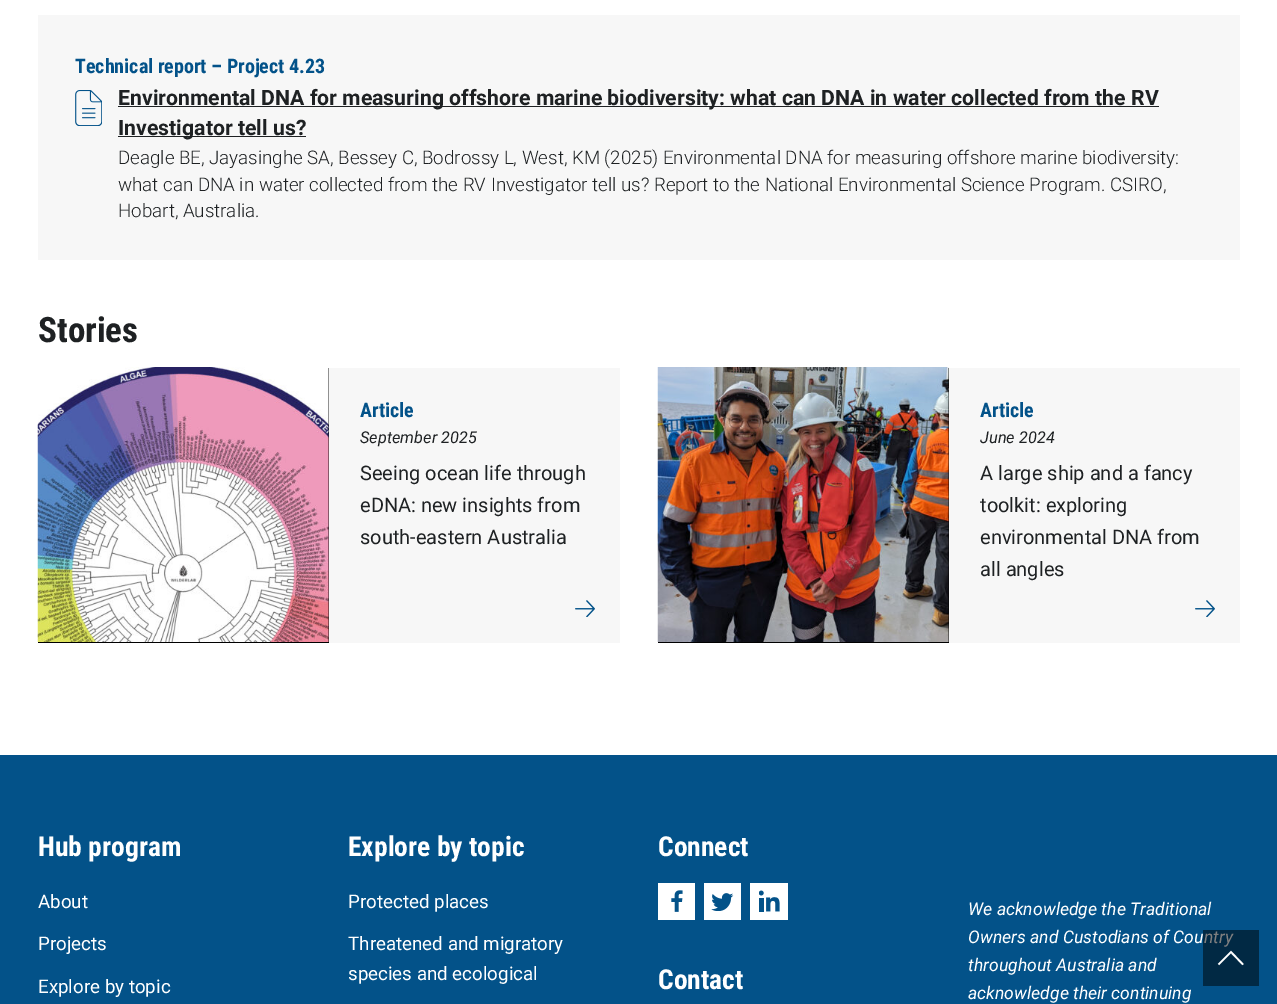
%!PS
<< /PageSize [1277 1004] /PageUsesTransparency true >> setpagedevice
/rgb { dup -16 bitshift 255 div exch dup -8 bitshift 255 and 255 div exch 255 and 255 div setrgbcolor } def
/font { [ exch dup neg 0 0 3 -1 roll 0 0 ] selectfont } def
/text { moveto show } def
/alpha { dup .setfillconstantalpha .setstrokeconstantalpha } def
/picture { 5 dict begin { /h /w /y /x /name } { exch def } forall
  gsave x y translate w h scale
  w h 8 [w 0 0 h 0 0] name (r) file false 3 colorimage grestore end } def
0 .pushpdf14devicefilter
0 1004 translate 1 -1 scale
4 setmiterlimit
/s1 { /RobotoCondensed-Bold 20 font 16#035289 rgb } def
/s2 { /Roboto-Bold 21.25 font 16#1E2123 rgb } def
/s3 { /Roboto-Light 18.75 font 16#1E2123 rgb } def
/s4 { /RobotoCondensed-Bold 35 font 16#1E2123 rgb } def
/s5 { /Roboto-Italic 16.25 font 16#1E2123 rgb } def
/s6 { /Roboto-Regular 20 font 16#1E2123 rgb } def
/s7 { /RobotoCondensed-Bold 27.5 font 16#FFFFFF rgb } def
/s8 { /Roboto-Regular 18.75 font 16#FFFFFF rgb } def
/s9 { /Roboto-Italic 17.5 font 16#FFFFFF rgb } def
16#FFFFFF rgb
0 0 1277 1004 rectfill
16#F7F7F7 rgb
38 15 1202 245 rectfill
s1
(Technical report – Project 4.23) 75 73 text
(pic1.raw) 75 90 27 36 picture
16#1E2123 rgb
118 106 1041 1 rectfill
s2
(Environmental DNA for measuring offshore marine biodiversity: what can DNA in water collected from the RV) 118 105 text
118 136 188 1 rectfill
(Investigator tell us?) 118 135 text
s3
(Deagle BE, Jayasinghe SA, Bessey C, Bodrossy L, West, KM \(2025\) Environmental DNA for measuring offshore marine biodiversity:) 118 164 text
(what can DNA in water collected from the RV Investigator tell us? Report to the National Environmental Science Program. CSIRO,) 118 191 text
(Hobart, Australia.) 118 217 text
s4
(Stories) 38 342 text
16#F7F7F7 rgb
329 368 291 275 rectfill
(pic2.raw) 575 600 20 17 picture
16#000000 rgb
38 368 291 275 rectfill
(pic3.raw) 37 367 292 275 picture
s1
(Article) 360 417 text
s5
(September 2025) 360 443 text
s6
(Seeing ocean life through) 360 480 text
(eDNA: new insights from) 360 512 text
(south-eastern Australia) 360 544 text
16#F7F7F7 rgb
949 368 291 275 rectfill
(pic2.raw) 1195 600 20 17 picture
16#000000 rgb
658 368 291 275 rectfill
(pic4.raw) 657 367 292 275 picture
s1
(Article) 980 417 text
s5
(June 2024) 980 443 text
s6
(A large ship and a fancy) 980 480 text
(toolkit: exploring) 980 512 text
(environmental DNA from) 980 544 text
(all angles) 980 576 text
16#035289 rgb
0 755 1277 249 rectfill
s7
(Hub program) 38 856 text
s8
(About) 38 908 text
(Projects) 38 950 text
(Explore by topic) 38 993 text
s7
(Explore by topic) 348 856 text
s8
(Protected places) 348 908 text
(Threatened and migratory) 348 950 text
(species and ecological) 348 980 text
s7
(Connect) 658 856 text
658 883 37 37 rectfill
(pic5.raw) 671 890 12 22 picture
704 883 37 37 rectfill
(pic6.raw) 711 893 23 18 picture
750 883 38 37 rectfill
(pic7.raw) 759 890 21 22 picture
(Contact) 658 989 text
s9
(We acknowledge the Traditional) 968 915 text
(Owners and Custodians of Country) 968 943 text
(throughout Australia and) 968 971 text
(acknowledge their continuing) 968 999 text
0.5 alpha
16#000000 rgb
1203 930 56 56 rectfill
1 alpha
16#FFFFFF rgb
1.7 setlinewidth
1243 964.5 moveto 1231 952 lineto 1218.5 964.5 lineto stroke
.poppdf14devicefilter showpage
